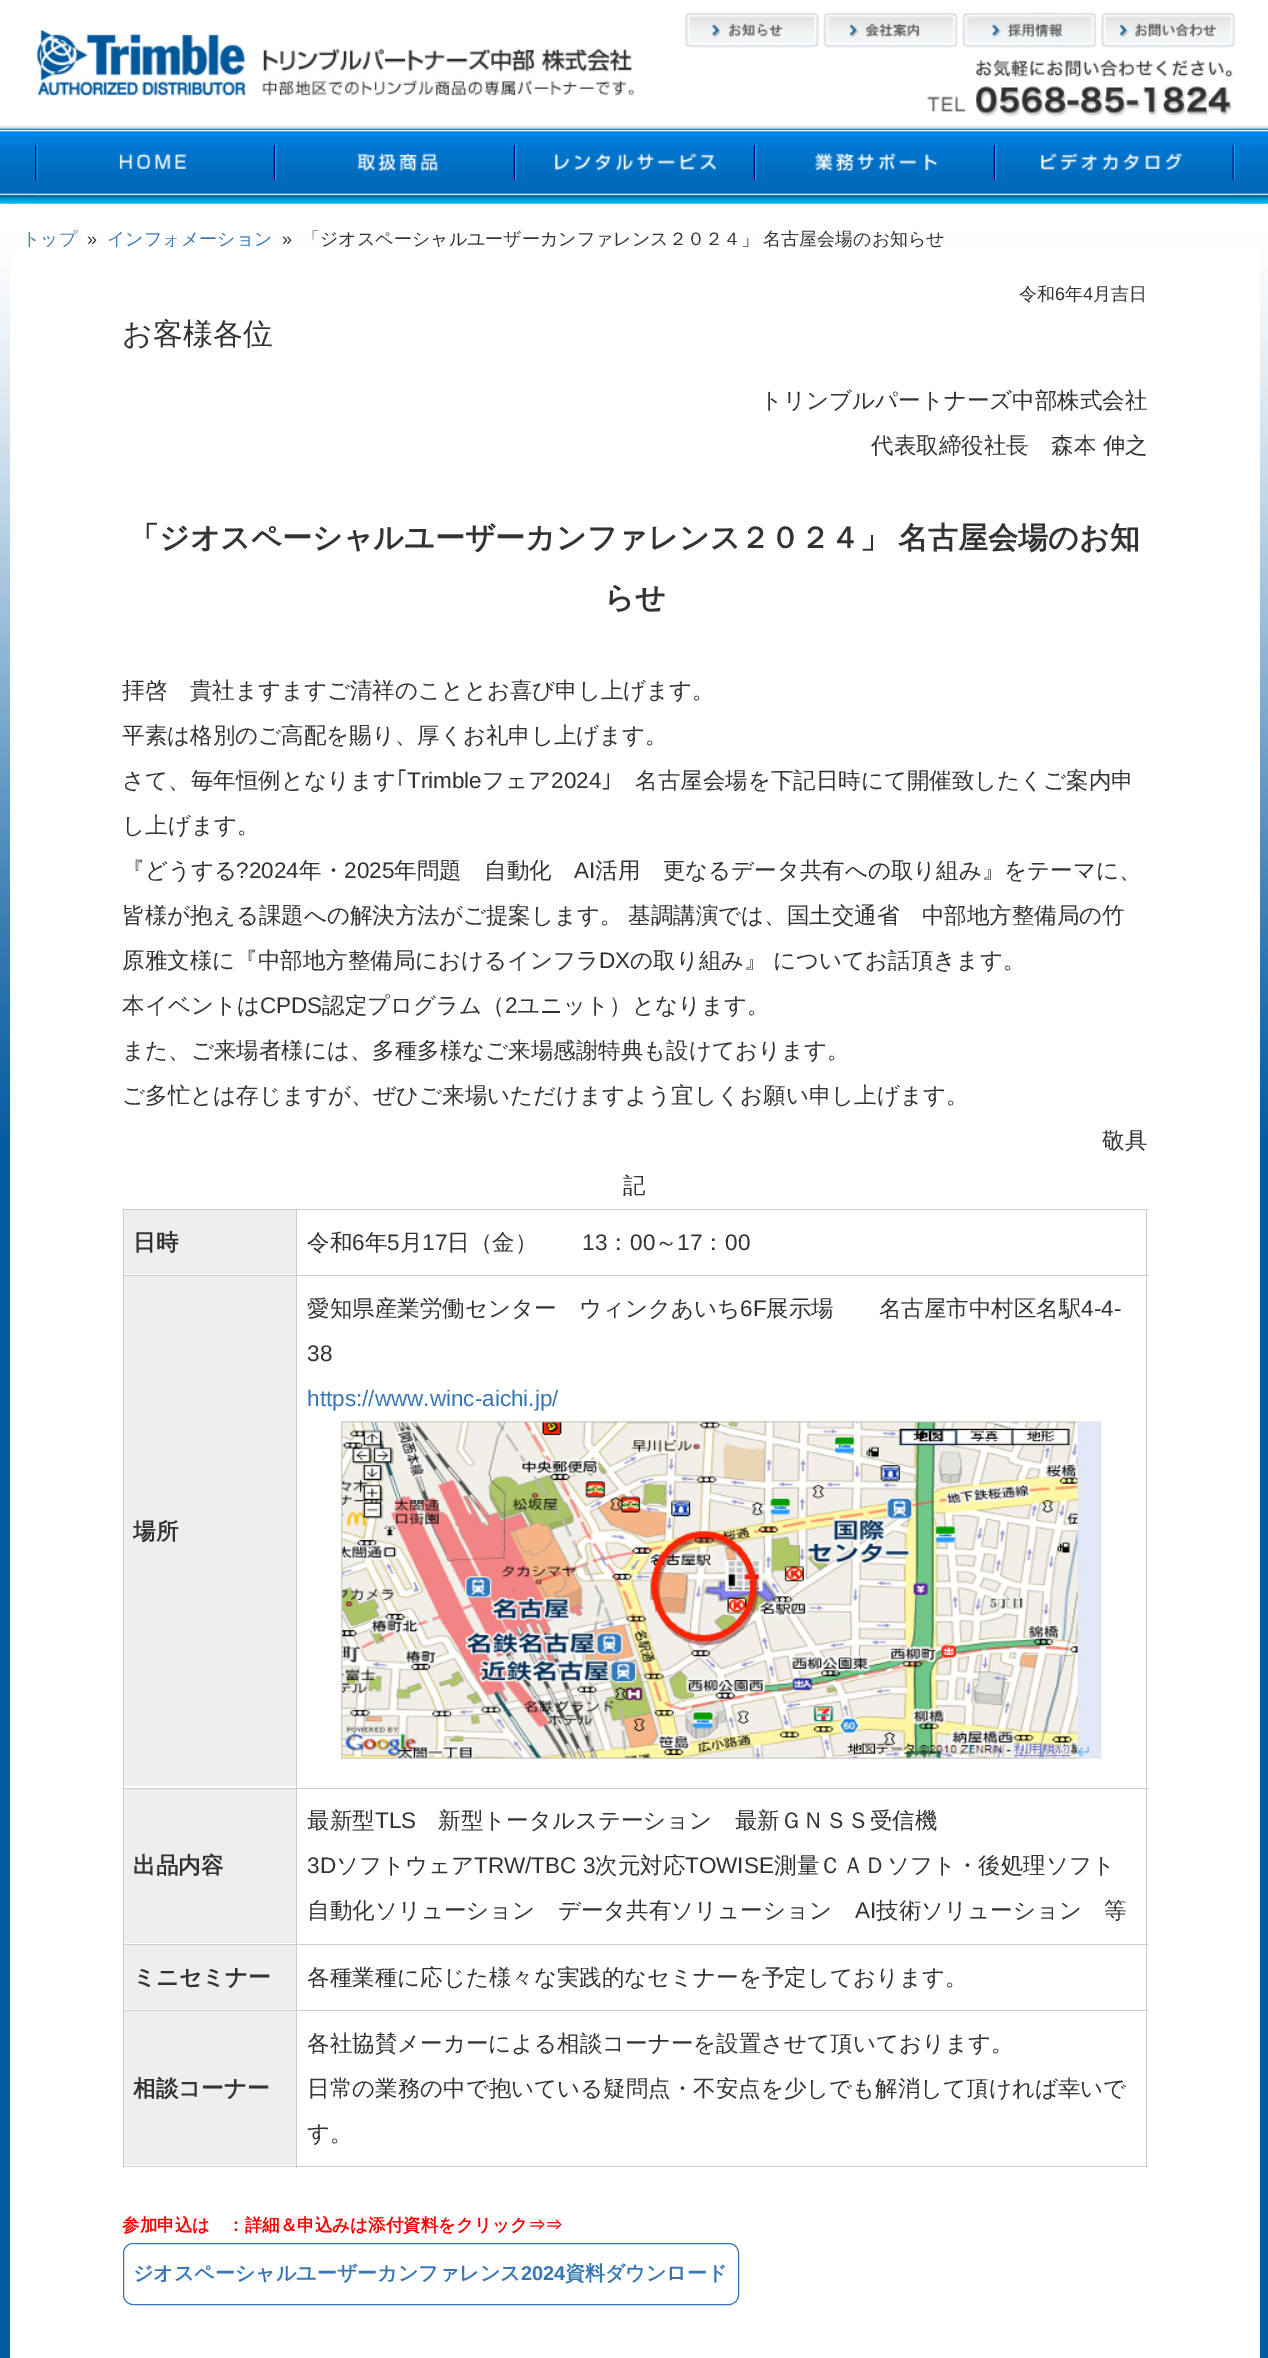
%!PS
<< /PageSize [1268 2358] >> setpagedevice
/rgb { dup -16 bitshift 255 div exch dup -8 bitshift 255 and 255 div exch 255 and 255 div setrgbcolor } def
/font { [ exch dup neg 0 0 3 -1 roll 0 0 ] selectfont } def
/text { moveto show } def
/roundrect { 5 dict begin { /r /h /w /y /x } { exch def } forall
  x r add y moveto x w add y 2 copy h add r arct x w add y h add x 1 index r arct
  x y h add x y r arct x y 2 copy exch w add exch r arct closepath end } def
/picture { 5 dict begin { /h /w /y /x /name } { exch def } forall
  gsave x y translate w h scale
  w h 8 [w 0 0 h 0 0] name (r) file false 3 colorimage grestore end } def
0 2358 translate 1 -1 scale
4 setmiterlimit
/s1 { /WenQuanYiZenHei-Medium 18 font 16#3977B4 rgb } def
/s2 { /LiberationSans-Regular 18 font 16#333333 rgb } def
/s3 { /WenQuanYiZenHei-Medium 18 font 16#333333 rgb } def
/s4 { /WenQuanYiZenHei-Medium 30 font 16#333333 rgb } def
/s5 { /WenQuanYiZenHei-Medium 22.5 font 16#333333 rgb } def
/s6 { /WenQuanYiZenHei-Bold 30 font 16#333333 rgb } def
/s7 { /IPAGothic-Regular 22.5 font 16#333333 rgb } def
/s8 { /LiberationSans-Regular 22.5 font 16#333333 rgb } def
/s9 { /WenQuanYiZenHei-Bold 22.5 font 16#333333 rgb } def
/s10 { /LiberationSans-Regular 22.5 font 16#3977B4 rgb } def
/s11 { /WenQuanYiZenHei-Bold 17.5 font 16#FF0000 rgb } def
/s12 { /WenQuanYiZenHei-Bold 20 font 16#3977B4 rgb } def
/s13 { /LiberationSans-Bold 20 font 16#3977B4 rgb } def
16#FFFFFF rgb
0 0 1268 2358 rectfill
(pic1.raw) 0 125 1268 79 picture
(pic2.raw) 927 59 306 58 picture
(pic3.raw) 35 29 599 68 picture
(pic4.raw) 685 12 134 36 picture
(pic5.raw) 823 12 135 36 picture
(pic6.raw) 962 12 135 36 picture
(pic7.raw) 1101 12 134 36 picture
(pic8.raw) 35 128 1200 76 picture
(pic9.raw) 274 145 1 35 picture
(pic10.raw) 275 145 240 35 picture
(pic11.raw) 515 145 240 35 picture
(pic12.raw) 755 145 240 35 picture
(pic13.raw) 995 145 238 35 picture
16#045BA0 rgb
0 1136 1268 1222 rectfill
(pic14.raw) 0 225 1268 911 picture
16#FFFFFF rgb
10 245 1250 2113 rectfill
s1
(トップ) 22 245 text
s2
(») 87 245 text
s1
(インフォメーション) 107 245 text
s2
(») 282 245 text
/WenQuanYiZenHei-Medium 18 font
302 245 moveto -1 0 32 (「ジオスペーシャルユーザーカンファレンス２０２４」 名古屋会場のお知らせ) widthshow
(令和) 1019 300 text
s2
(6) 1055 300 text
s3
(年) 1065 300 text
s2
(4) 1083 300 text
s3
(月吉日) 1093 300 text
s4
(お客様各位) 122 344 text
s5
(トリンブルパートナーズ中部株式会社) 760 408 text
(代表取締役社長　森本 伸之) 871 453 text
/WenQuanYiZenHei-Bold 30 font
129 548 moveto -1 0 32 (「ジオスペーシャルユーザーカンファレンス２０２４」 名古屋会場のお知) widthshow
(らせ) 604 608 text
s5
(拝啓　貴社ますますご清祥のこととお喜び申し上げます。) 122 698 text
(平素は格別のご高配を賜り、厚くお礼申し上げます。) 122 743 text
(さて、毎年恒例となります) 122 788 text
s7
(｢) 396 788 text
s8
(Trimble) 407 788 text
s5
(フェア) 482 788 text
s8
(2024) 551 788 text
s7
(｣) 601 788 text
s5
(名古屋会場を下記日時にて開催致したくご案内申) 635 788 text
(し上げます。) 122 833 text
(『どうする) 122 878 text
s8
(?2024) 236 878 text
s5
(年・) 299 878 text
s8
(2025) 344 878 text
s5
(年問題　自動化) 394 878 text
s8
(AI) 574 878 text
s5
(活用　更なるデータ共有への取り組み』をテーマに、) 595 878 text
(皆様が抱える課題への解決方法がご提案します。) 122 923 text
(基調講演では、国土交通省　中部地方整備局の竹) 628 923 text
(原雅文様に『中部地方整備局におけるインフラ) 122 968 text
s8
(DX) 599 968 text
s5
(の取り組み』 についてお話頂きます。) 630 968 text
(本イベントは) 122 1013 text
s8
(CPDS) 260 1013 text
s5
(認定プログラム（) 322 1013 text
s8
(2) 505 1013 text
s5
(ユニット）となります。) 517 1013 text
(また、ご来場者様には、多種多様なご来場感謝特典も設けております。) 122 1058 text
(ご多忙とは存じますが、ぜひご来場いただけますよう宜しくお願い申し上げます。) 122 1103 text
(敬具) 1102 1148 text
(記) 623 1193 text
16#CCCCCC rgb
123 1209 1025 1 rectfill
1146 1209 1 959 rectfill
123 2166 1025 1 rectfill
123 1209 1 959 rectfill
16#EEEEEE rgb
124 1210 172 64 rectfill
16#CCCCCC rgb
296 2010 1 158 rectfill
296 2010 852 1 rectfill
296 1944 1 67 rectfill
296 1944 852 1 rectfill
296 1788 1 157 rectfill
296 1788 852 1 rectfill
296 1275 1 514 rectfill
296 1275 852 1 rectfill
296 1209 1 67 rectfill
123 1275 175 1 rectfill
s9
(日時) 133 1250 text
s5
(令和) 307 1250 text
s8
(6) 352 1250 text
s5
(年) 365 1250 text
s8
(5) 387 1250 text
s5
(月) 400 1250 text
s8
(17) 422 1250 text
s5
(日（金）) 447 1250 text
s8
(13) 582 1250 text
s5
(：) 607 1250 text
s8
(00) 630 1250 text
s5
(～) 655 1250 text
s8
(17) 677 1250 text
s5
(：) 702 1250 text
s8
(00) 725 1250 text
s5
(愛知県産業労働センター　ウィンクあいち) 307 1316 text
s8
(6F) 740 1316 text
s5
(展示場　　名古屋市中村区名駅) 766 1316 text
s8
(4-4-) 1081 1316 text
(38) 307 1361 text
s10
(https://www.winc-aichi.jp/) 307 1406 text
(pic15.raw) 341 1421 761 340 picture
16#EEEEEE rgb
124 1276 172 510 rectfill
16#CCCCCC rgb
123 1788 175 1 rectfill
s9
(場所) 133 1539 text
16#EEEEEE rgb
124 1789 172 154 rectfill
16#CCCCCC rgb
123 1944 175 1 rectfill
s9
(出品内容) 133 1873 text
s5
(最新型) 307 1828 text
s8
(TLS) 375 1828 text
s5
(新型トータルステーション　最新ＧＮＳＳ受信機) 438 1828 text
s8
(3D) 307 1873 text
s5
(ソフトウェア) 336 1873 text
s8
(TRW/TBC 3) 474 1873 text
s5
(次元対応) 595 1873 text
s8
(TOWISE) 685 1873 text
s5
(測量ＣＡＤソフト・後処理ソフト) 774 1873 text
(自動化ソリューション　データ共有ソリューション) 307 1918 text
s8
(AI) 855 1918 text
s5
(技術ソリューション　等) 876 1918 text
16#EEEEEE rgb
124 1945 172 64 rectfill
16#CCCCCC rgb
123 2010 175 1 rectfill
s9
(ミニセミナー) 133 1985 text
s5
(各種業種に応じた様々な実践的なセミナーを予定しております。) 307 1985 text
16#EEEEEE rgb
124 2011 172 154 rectfill
s9
(相談コーナー) 133 2096 text
s5
(各社協賛メーカーによる相談コーナーを設置させて頂いております。) 307 2051 text
(日常の業務の中で抱いている疑問点・不安点を少しでも解消して頂ければ幸いで) 307 2096 text
(す。) 307 2141 text
s11
(参加申込は　：詳細＆申込みは添付資料をクリック⇒⇒) 122 2231 text
16#3977B4 rgb
123.5 2243.5 615 61 9.5 roundrect stroke
s12
(ジオスペーシャルユーザーカンファレンス) 133 2280 text
s13
(2024) 521 2280 text
s12
(資料ダウンロード) 565 2280 text
showpage
